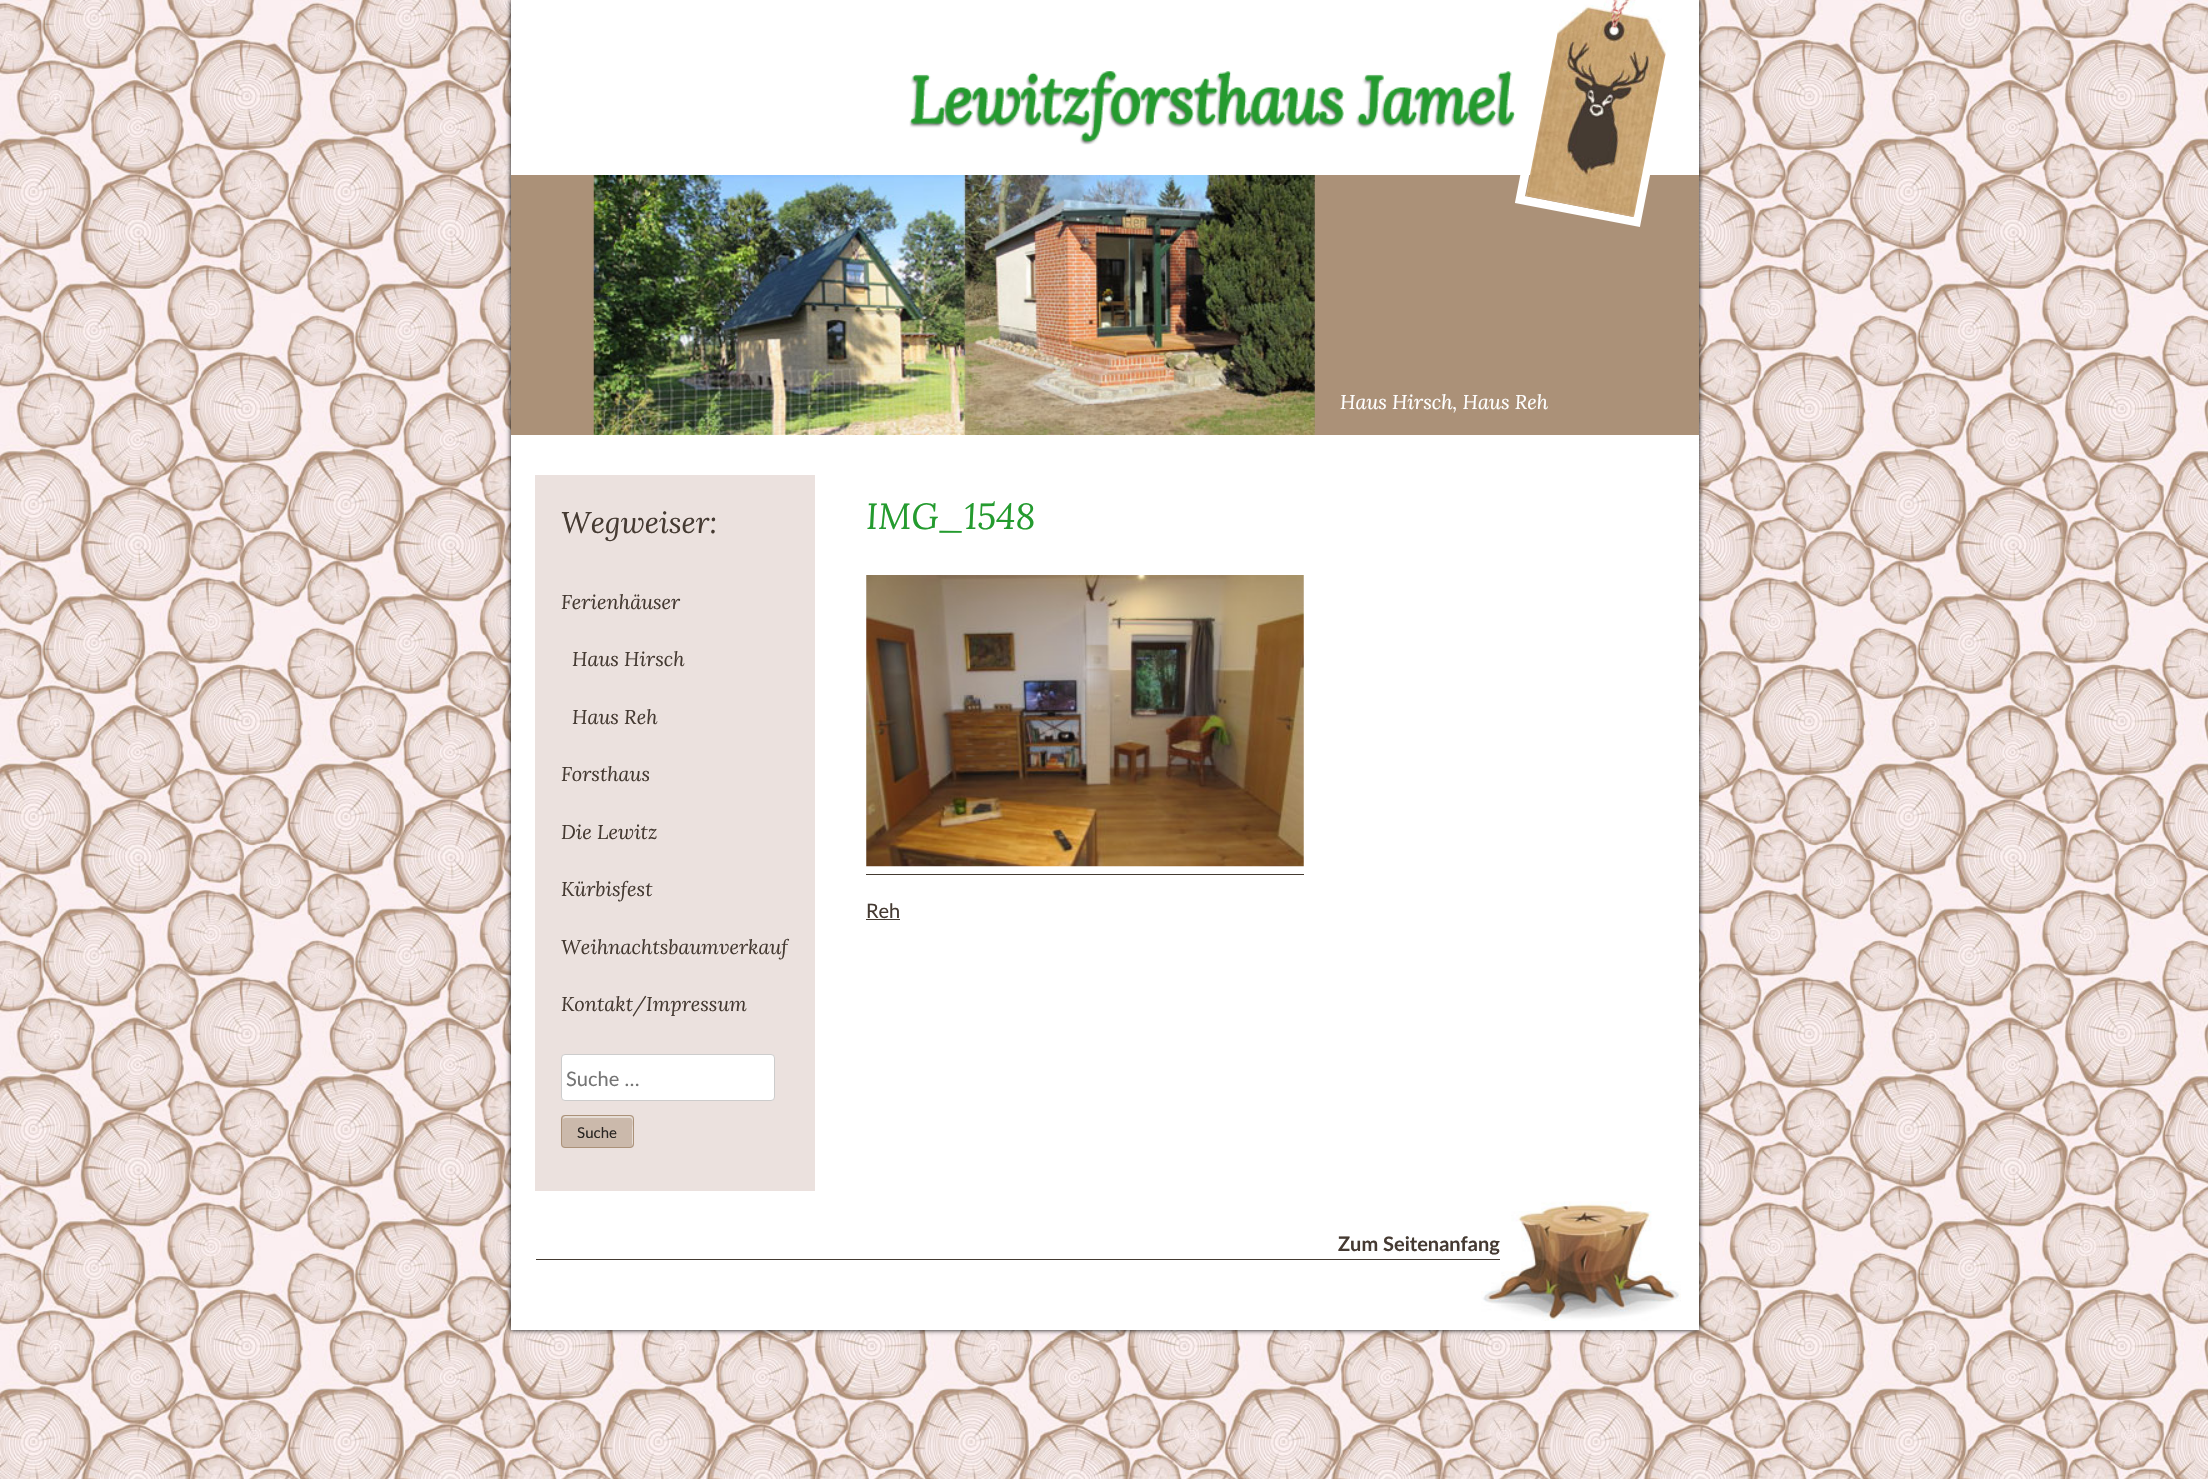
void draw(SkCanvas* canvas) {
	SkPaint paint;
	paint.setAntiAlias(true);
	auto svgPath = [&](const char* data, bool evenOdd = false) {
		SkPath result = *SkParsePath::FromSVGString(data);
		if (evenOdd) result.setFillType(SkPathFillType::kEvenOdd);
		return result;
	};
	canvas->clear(0xffffffff);
	canvas->drawImageRect(SkImages::DeferredFromEncodedData(SkData::MakeFromFileName("img1.png")), SkRect::MakeXYWH(0, 0, 2208, 1479), SkSamplingOptions());
	paint.setColor(0xff000000);
	paint.setMaskFilter(SkMaskFilter::MakeBlur(kNormal_SkBlurStyle, 2.5));
	canvas->drawRect(SkRect::MakeXYWH(511, 0, 1188, 1330), paint);
	paint.setMaskFilter(nullptr);
	paint.setColor(0xffffffff);
	canvas->drawRect(SkRect::MakeXYWH(511, 0, 1188, 1330), paint);
	canvas->drawImageRect(SkImages::DeferredFromEncodedData(SkData::MakeFromFileName("img2.png")), SkRect::MakeXYWH(909, 71, 606, 74), SkSamplingOptions());
	paint.setColor(0xffab9178);
	canvas->drawRect(SkRect::MakeXYWH(511, 175, 1188, 260), paint);
	paint.setStroke(true);
	paint.setStrokeWidth(8.7);
	paint.setColor(0xffffffff);
	canvas->drawPath(svgPath("M1569.5-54.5L1686-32L1636.5 222L1520 199.5Z"), paint);
	canvas->drawImageRect(SkImages::DeferredFromEncodedData(SkData::MakeFromFileName("img3.png")), SkRect::MakeXYWH(1526, 0, 142, 217), SkSamplingOptions());
	canvas->drawImageRect(SkImages::DeferredFromEncodedData(SkData::MakeFromFileName("img4.png")), SkRect::MakeXYWH(593, 175, 722, 260), SkSamplingOptions());
	SkFont f1(fontMgr->matchFamilyStyle("Lora", SkFontStyle::Italic()), 20);
	f1.setSubpixel(true);
	paint.setStroke(false);
	canvas->drawString("Haus Hirsch, Haus Reh", 1340, 409, f1, paint);
	paint.setColor(0xffebe1de);
	canvas->drawRect(SkRect::MakeXYWH(535, 475, 280, 716), paint);
	SkFont f2(fontMgr->matchFamilyStyle("Lora", SkFontStyle::Italic()), 30);
	f2.setSubpixel(true);
	paint.setColor(0xff453a32);
	canvas->drawString("Wegweiser:", 561, 533, f2, paint);
	canvas->drawString("Ferienhäuser", 561, 609, f1, paint);
	canvas->drawString("Haus Hirsch", 572, 666, f1, paint);
	canvas->drawString("Haus Reh", 572, 724, f1, paint);
	canvas->drawString("Forsthaus", 561, 781, f1, paint);
	canvas->drawString("Die Lewitz", 561, 839, f1, paint);
	canvas->drawString("Kürbisfest", 561, 896, f1, paint);
	canvas->drawString("Weihnachtsbaumverkauf", 561, 954, f1, paint);
	canvas->drawString("Kontakt/Impressum", 561, 1011, f1, paint);
	paint.setColor(0xffffffff);
	canvas->drawRoundRect(SkRect::MakeXYWH(561.5, 1054.5, 213, 46), 3.5, 3.5, paint);
	paint.setStroke(true);
	paint.setStrokeWidth(1);
	paint.setColor(0xffcccccc);
	canvas->drawRoundRect(SkRect::MakeXYWH(561.5, 1054.5, 213, 46), 3.5, 3.5, paint);
	SkFont f3(fontMgr->matchFamilyStyle("Lato", SkFontStyle::Normal()), 20);
	f3.setSubpixel(true);
	paint.setStroke(false);
	paint.setColor(0xff757575);
	canvas->drawString("Suche …", 566, 1086, f3, paint);
	paint.setColor(0xffcbb9ab);
	canvas->drawRoundRect(SkRect::MakeXYWH(561, 1115, 73, 33), 4, 4, paint);
	paint.setColor(0xffe5dcd5);
	canvas->drawPath(svgPath("M565 1118H630C634 1118 632 1127 632 1128V1146C634 1144 633 1134 633 1131C633 1114 637 1116 620 1116H576C571 1116 563 1114 563 1119Z"), paint);
	paint.setStroke(true);
	paint.setColor(0xffab9178);
	canvas->drawRoundRect(SkRect::MakeXYWH(561.5, 1115.5, 72, 32), 3.5, 3.5, paint);
	SkFont f4(fontMgr->matchFamilyStyle("Lato", SkFontStyle::Normal()), 15);
	f4.setSubpixel(true);
	paint.setStroke(false);
	paint.setColor(0xff292522);
	canvas->drawString("Suche", 577, 1138, f4, paint);
	SkFont f5(fontMgr->matchFamilyStyle("Lora", SkFontStyle::Italic()), 36.25);
	f5.setSubpixel(true);
	paint.setColor(0xff249b2f);
	canvas->drawString("IMG_1548", 866, 529, f5, paint);
	paint.setColor(0xff443a31);
	canvas->drawRect(SkRect::MakeXYWH(866, 874, 438, 1), paint);
	canvas->drawImageRect(SkImages::DeferredFromEncodedData(SkData::MakeFromFileName("img5.png")), SkRect::MakeXYWH(866, 575, 438, 292), SkSamplingOptions());
	paint.setColor(0xff453a32);
	canvas->drawString("Reh", 866, 918, f3, paint);
	paint.setColor(0xff443a31);
	canvas->drawRect(SkRect::MakeXYWH(866, 919, 34, 1), paint);
	canvas->drawImageRect(SkImages::DeferredFromEncodedData(SkData::MakeFromFileName("img6.png")), SkRect::MakeXYWH(1481, 1201, 200, 120), SkSamplingOptions());
	canvas->drawRect(SkRect::MakeXYWH(536, 1259, 964, 1), paint);
	SkFont f6(fontMgr->matchFamilyStyle("Lato", SkFontStyle::Bold()), 20);
	f6.setSubpixel(true);
	paint.setColor(0xff453a32);
	canvas->drawString("Zum Seitenanfang", 1338, 1251, f6, paint);
}
